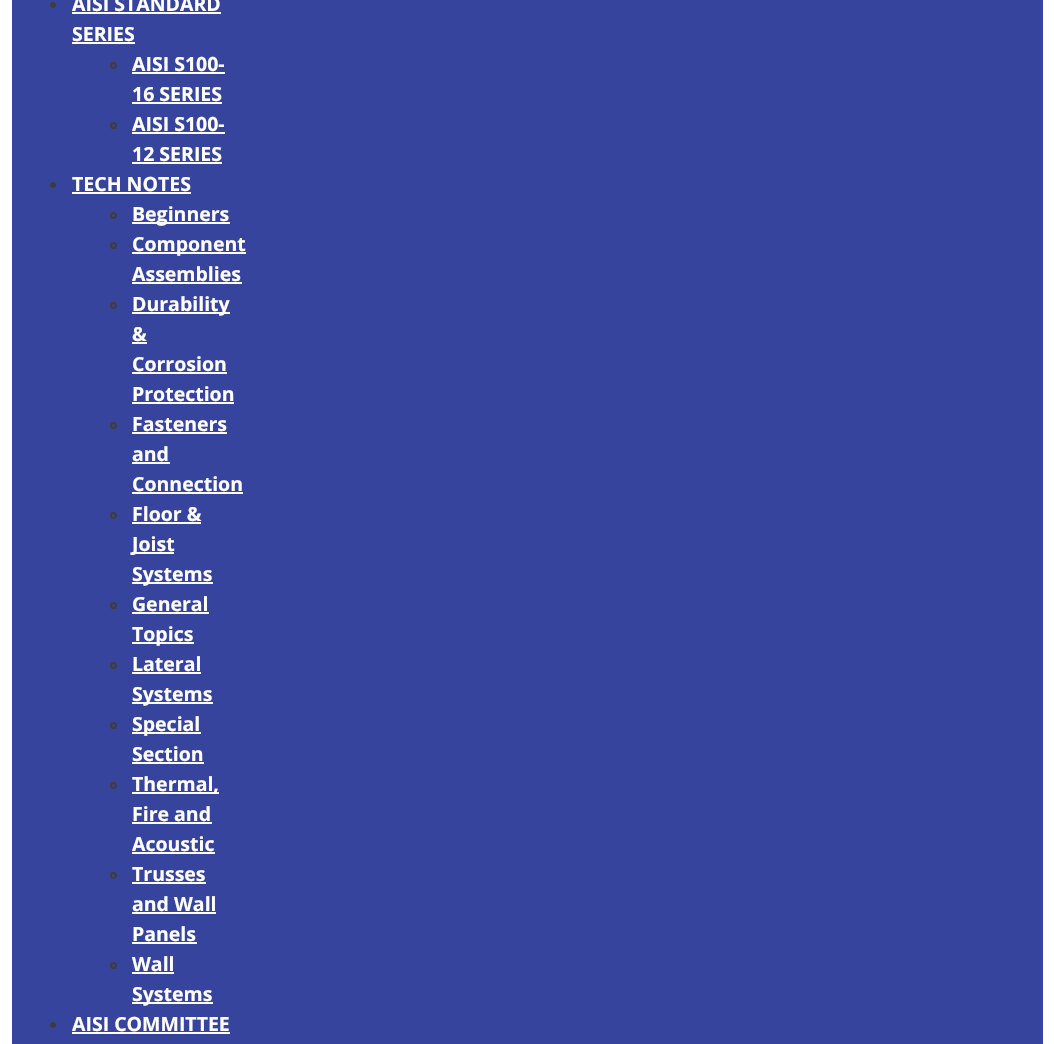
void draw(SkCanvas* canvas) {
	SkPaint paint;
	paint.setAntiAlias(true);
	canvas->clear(0xffffffff);
	paint.setColor(0xff37449d);
	canvas->drawRect(SkRect::MakeXYWH(12, 0, 1031, 1044), paint);
	paint.setColor(0xff3d3d3d);
	canvas->drawCircle(53, 5, 3, paint);
	SkFont f1(fontMgr->matchFamilyStyle("Open Sans", SkFontStyle::Bold()), 19.5);
	f1.setSubpixel(true);
	paint.setColor(0xffffffff);
	canvas->drawString("AISI STANDARD", 72, 11, f1, paint);
	canvas->drawRect(SkRect::MakeXYWH(72, 12, 149, 2), paint);
	canvas->drawString("SERIES", 72, 41, f1, paint);
	canvas->drawRect(SkRect::MakeXYWH(72, 42, 63, 2), paint);
	paint.setStroke(true);
	paint.setStrokeWidth(2);
	paint.setColor(0xff3d3d3d);
	canvas->drawCircle(113.5, 65.5, 2.5, paint);
	paint.setStroke(false);
	paint.setColor(0xffffffff);
	canvas->drawString("AISI S100-", 132, 71, f1, paint);
	canvas->drawRect(SkRect::MakeXYWH(132, 72, 93, 2), paint);
	canvas->drawString("16 SERIES", 132, 101, f1, paint);
	canvas->drawRect(SkRect::MakeXYWH(132, 102, 90, 2), paint);
	paint.setStroke(true);
	paint.setColor(0xff3d3d3d);
	canvas->drawCircle(113.5, 125.5, 2.5, paint);
	paint.setStroke(false);
	paint.setColor(0xffffffff);
	canvas->drawString("AISI S100-", 132, 131, f1, paint);
	canvas->drawRect(SkRect::MakeXYWH(132, 132, 93, 2), paint);
	canvas->drawString("12 SERIES", 132, 161, f1, paint);
	canvas->drawRect(SkRect::MakeXYWH(132, 162, 90, 2), paint);
	paint.setColor(0xff3d3d3d);
	canvas->drawCircle(53, 185, 3, paint);
	paint.setColor(0xffffffff);
	canvas->drawString("TECH NOTES", 72, 191, f1, paint);
	canvas->drawRect(SkRect::MakeXYWH(72, 192, 119, 2), paint);
	paint.setStroke(true);
	paint.setColor(0xff3d3d3d);
	canvas->drawCircle(113.5, 215.5, 2.5, paint);
	paint.setStroke(false);
	paint.setColor(0xffffffff);
	canvas->drawRect(SkRect::MakeXYWH(132, 222, 98, 2), paint);
	canvas->drawString("Beginners", 132, 221, f1, paint);
	paint.setStroke(true);
	paint.setColor(0xff3d3d3d);
	canvas->drawCircle(113.5, 245.5, 2.5, paint);
	paint.setStroke(false);
	paint.setColor(0xffffffff);
	canvas->drawRect(SkRect::MakeXYWH(132, 252, 114, 2), paint);
	canvas->drawString("Component", 132, 251, f1, paint);
	canvas->drawString("Assemblies", 132, 281, f1, paint);
	canvas->drawRect(SkRect::MakeXYWH(132, 282, 110, 2), paint);
	paint.setStroke(true);
	paint.setColor(0xff3d3d3d);
	canvas->drawCircle(113.5, 305.5, 2.5, paint);
	paint.setStroke(false);
	paint.setColor(0xffffffff);
	canvas->drawRect(SkRect::MakeXYWH(132, 312, 98, 2), paint);
	canvas->drawString("Durability", 132, 311, f1, paint);
	canvas->drawString("&", 132, 341, f1, paint);
	canvas->drawRect(SkRect::MakeXYWH(132, 342, 15, 2), paint);
	canvas->drawString("Corrosion", 132, 371, f1, paint);
	canvas->drawRect(SkRect::MakeXYWH(132, 372, 95, 2), paint);
	canvas->drawString("Protection", 132, 401, f1, paint);
	canvas->drawRect(SkRect::MakeXYWH(132, 402, 102, 2), paint);
	paint.setStroke(true);
	paint.setColor(0xff3d3d3d);
	canvas->drawCircle(113.5, 425.5, 2.5, paint);
	paint.setStroke(false);
	paint.setColor(0xffffffff);
	canvas->drawString("Fasteners", 132, 431, f1, paint);
	canvas->drawRect(SkRect::MakeXYWH(132, 432, 95, 2), paint);
	canvas->drawString("and", 132, 461, f1, paint);
	canvas->drawRect(SkRect::MakeXYWH(132, 462, 38, 2), paint);
	canvas->drawString("Connection", 132, 491, f1, paint);
	canvas->drawRect(SkRect::MakeXYWH(132, 492, 111, 2), paint);
	paint.setStroke(true);
	paint.setColor(0xff3d3d3d);
	canvas->drawCircle(113.5, 515.5, 2.5, paint);
	paint.setStroke(false);
	paint.setColor(0xffffffff);
	canvas->drawString("Floor &", 132, 521, f1, paint);
	canvas->drawRect(SkRect::MakeXYWH(132, 522, 69, 2), paint);
	canvas->drawRect(SkRect::MakeXYWH(132, 552, 42, 2), paint);
	canvas->drawString("Joist", 132, 551, f1, paint);
	canvas->drawRect(SkRect::MakeXYWH(132, 582, 81, 2), paint);
	canvas->drawString("Systems", 132, 581, f1, paint);
	paint.setStroke(true);
	paint.setColor(0xff3d3d3d);
	canvas->drawCircle(113.5, 605.5, 2.5, paint);
	paint.setStroke(false);
	paint.setColor(0xffffffff);
	canvas->drawString("General", 132, 611, f1, paint);
	canvas->drawRect(SkRect::MakeXYWH(132, 612, 77, 2), paint);
	canvas->drawRect(SkRect::MakeXYWH(132, 642, 62, 2), paint);
	canvas->drawString("Topics", 132, 641, f1, paint);
	paint.setStroke(true);
	paint.setColor(0xff3d3d3d);
	canvas->drawCircle(113.5, 665.5, 2.5, paint);
	paint.setStroke(false);
	paint.setColor(0xffffffff);
	canvas->drawString("Lateral", 132, 671, f1, paint);
	canvas->drawRect(SkRect::MakeXYWH(132, 672, 69, 2), paint);
	canvas->drawRect(SkRect::MakeXYWH(132, 702, 81, 2), paint);
	canvas->drawString("Systems", 132, 701, f1, paint);
	paint.setStroke(true);
	paint.setColor(0xff3d3d3d);
	canvas->drawCircle(113.5, 725.5, 2.5, paint);
	paint.setStroke(false);
	paint.setColor(0xffffffff);
	canvas->drawRect(SkRect::MakeXYWH(132, 732, 69, 2), paint);
	canvas->drawString("Special", 132, 731, f1, paint);
	canvas->drawString("Section", 132, 761, f1, paint);
	canvas->drawRect(SkRect::MakeXYWH(132, 762, 72, 2), paint);
	paint.setStroke(true);
	paint.setColor(0xff3d3d3d);
	canvas->drawCircle(113.5, 785.5, 2.5, paint);
	paint.setStroke(false);
	paint.setColor(0xffffffff);
	canvas->drawRect(SkRect::MakeXYWH(132, 792, 87, 2), paint);
	canvas->drawString("Thermal,", 132, 791, f1, paint);
	canvas->drawString("Fire and", 132, 821, f1, paint);
	canvas->drawRect(SkRect::MakeXYWH(132, 822, 80, 2), paint);
	canvas->drawString("Acoustic", 132, 851, f1, paint);
	canvas->drawRect(SkRect::MakeXYWH(132, 852, 83, 2), paint);
	paint.setStroke(true);
	paint.setColor(0xff3d3d3d);
	canvas->drawCircle(113.5, 875.5, 2.5, paint);
	paint.setStroke(false);
	paint.setColor(0xffffffff);
	canvas->drawString("Trusses", 132, 881, f1, paint);
	canvas->drawRect(SkRect::MakeXYWH(132, 882, 74, 2), paint);
	canvas->drawString("and Wall", 132, 911, f1, paint);
	canvas->drawRect(SkRect::MakeXYWH(132, 912, 84, 2), paint);
	canvas->drawString("Panels", 132, 941, f1, paint);
	canvas->drawRect(SkRect::MakeXYWH(132, 942, 65, 2), paint);
	paint.setStroke(true);
	paint.setColor(0xff3d3d3d);
	canvas->drawCircle(113.5, 965.5, 2.5, paint);
	paint.setStroke(false);
	paint.setColor(0xffffffff);
	canvas->drawString("Wall", 132, 971, f1, paint);
	canvas->drawRect(SkRect::MakeXYWH(132, 972, 42, 2), paint);
	canvas->drawRect(SkRect::MakeXYWH(132, 1002, 81, 2), paint);
	canvas->drawString("Systems", 132, 1001, f1, paint);
	paint.setColor(0xff3d3d3d);
	canvas->drawCircle(53, 1025, 3, paint);
	paint.setColor(0xffffffff);
	canvas->drawString("AISI COMMITTEE", 72, 1031, f1, paint);
	canvas->drawRect(SkRect::MakeXYWH(72, 1032, 158, 2), paint);
}
